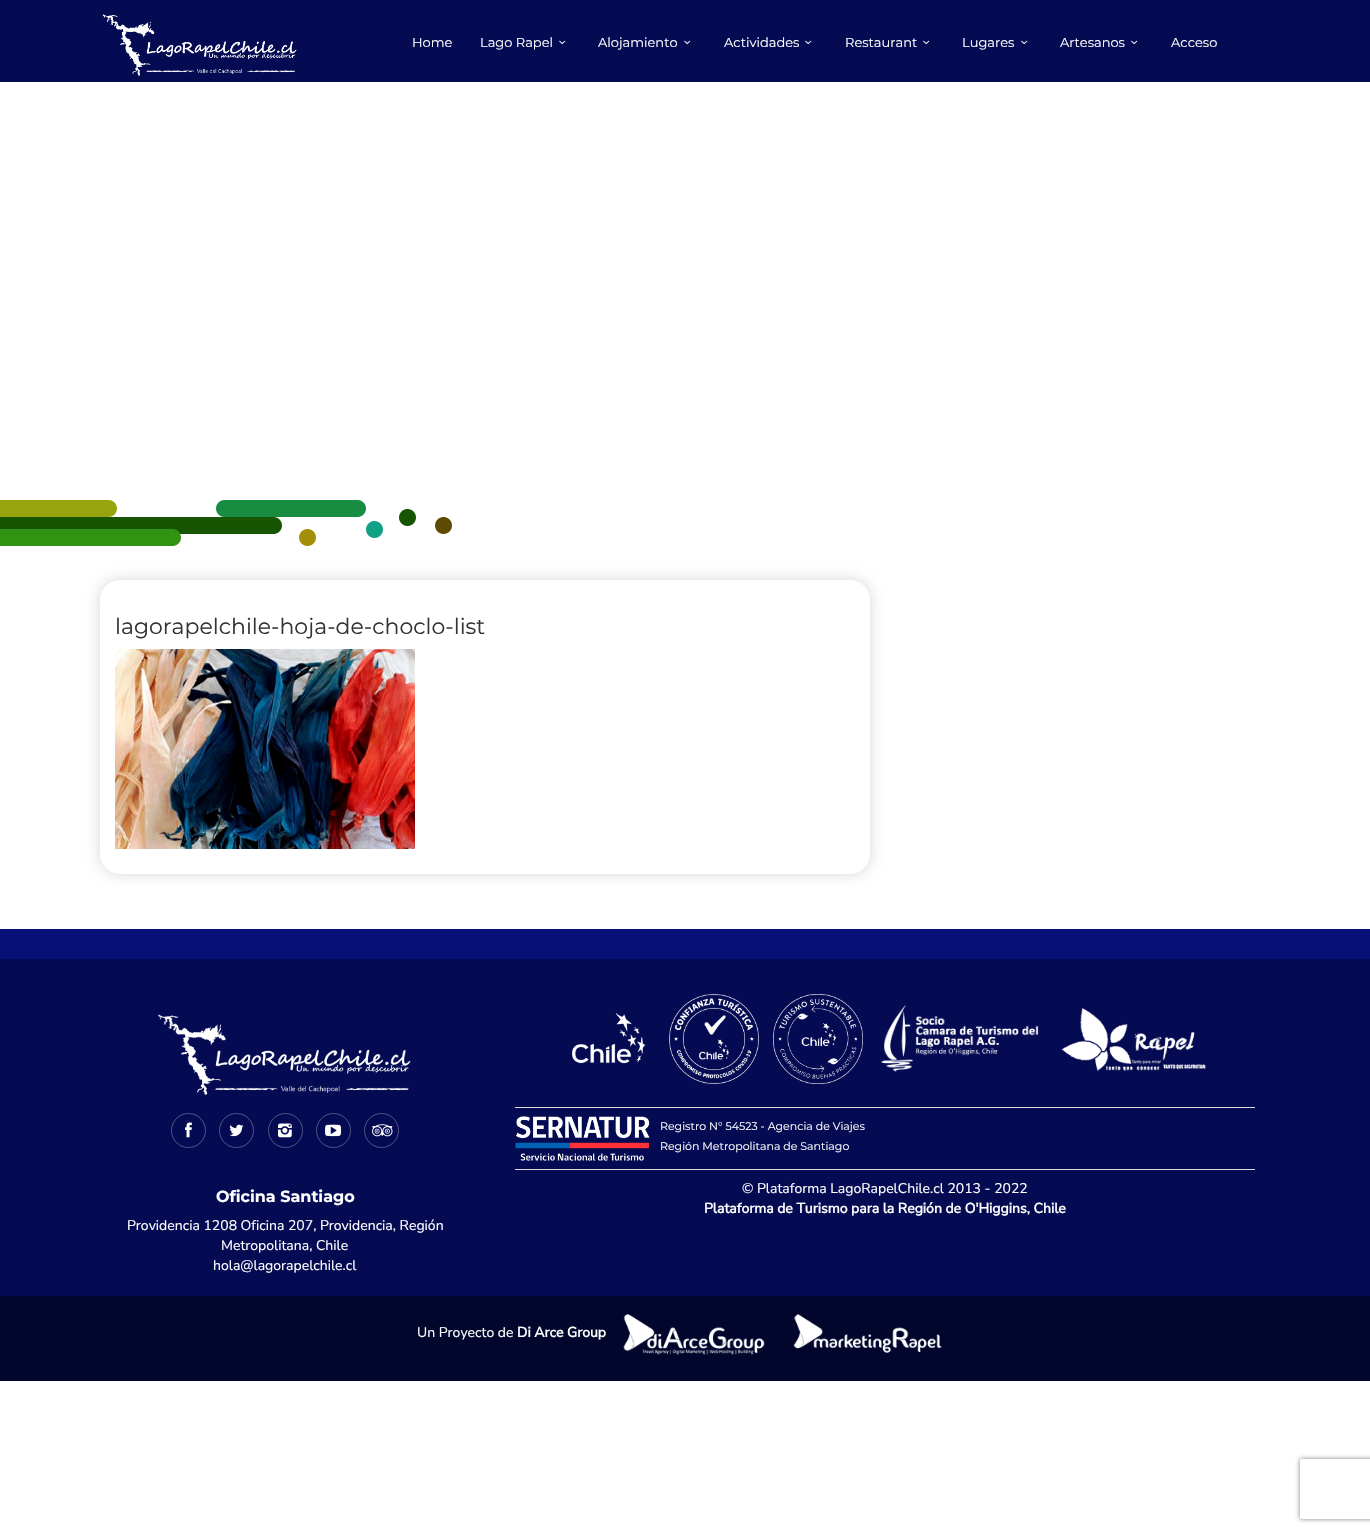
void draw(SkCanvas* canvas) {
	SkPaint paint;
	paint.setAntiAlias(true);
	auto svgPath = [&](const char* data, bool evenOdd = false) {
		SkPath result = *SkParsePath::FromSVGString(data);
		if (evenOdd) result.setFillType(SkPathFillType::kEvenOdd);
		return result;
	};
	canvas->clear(0xffffffff);
	paint.setColor(0xff040b52);
	canvas->drawRect(SkRect::MakeXYWH(0, 0, 1370, 82), paint);
	canvas->drawImageRect(SkImages::DeferredFromEncodedData(SkData::MakeFromFileName("img1.png")), SkRect::MakeXYWH(102, 14, 195, 62), SkSamplingOptions());
	SkFont f1(fontMgr->matchFamilyStyle("Montserrat", SkFontStyle::Normal()), 13);
	f1.setSubpixel(true);
	paint.setColor(0xffffffff);
	canvas->drawString("Home", 412, 47, f1, paint);
	canvas->drawString("Lago Rapel", 480, 47, f1, paint);
	canvas->drawImageRect(SkImages::DeferredFromEncodedData(SkData::MakeFromFileName("img2.png")), SkRect::MakeXYWH(559, 40, 7, 5), SkSamplingOptions());
	canvas->drawString("Alojamiento", 598, 47, f1, paint);
	canvas->drawImageRect(SkImages::DeferredFromEncodedData(SkData::MakeFromFileName("img2.png")), SkRect::MakeXYWH(684, 40, 7, 5), SkSamplingOptions());
	canvas->drawString("Actividades", 724, 47, f1, paint);
	canvas->drawImageRect(SkImages::DeferredFromEncodedData(SkData::MakeFromFileName("img2.png")), SkRect::MakeXYWH(805, 40, 7, 5), SkSamplingOptions());
	canvas->drawString("Restaurant", 845, 47, f1, paint);
	canvas->drawImageRect(SkImages::DeferredFromEncodedData(SkData::MakeFromFileName("img2.png")), SkRect::MakeXYWH(923, 40, 7, 5), SkSamplingOptions());
	canvas->drawString("Lugares", 962, 47, f1, paint);
	canvas->drawImageRect(SkImages::DeferredFromEncodedData(SkData::MakeFromFileName("img2.png")), SkRect::MakeXYWH(1021, 40, 7, 5), SkSamplingOptions());
	canvas->drawString("Artesanos", 1060, 47, f1, paint);
	canvas->drawImageRect(SkImages::DeferredFromEncodedData(SkData::MakeFromFileName("img2.png")), SkRect::MakeXYWH(1131, 40, 7, 5), SkSamplingOptions());
	canvas->drawString("Acceso", 1171, 47, f1, paint);
	canvas->drawImageRect(SkImages::DeferredFromEncodedData(SkData::MakeFromFileName("img3.png")), SkRect::MakeXYWH(0, 500, 452, 46), SkSamplingOptions());
	paint.setColor(0x29000000);
	paint.setMaskFilter(SkMaskFilter::MakeBlur(kNormal_SkBlurStyle, 7));
	canvas->drawRoundRect(SkRect::MakeXYWH(100, 580, 770, 294), 20, 20, paint);
	paint.setMaskFilter(nullptr);
	paint.setColor(0xffffffff);
	canvas->drawRoundRect(SkRect::MakeXYWH(100, 580, 770, 294), 20, 20, paint);
	SkFont f2(fontMgr->matchFamilyStyle("Montserrat", SkFontStyle::Normal()), 22);
	f2.setSubpixel(true);
	paint.setColor(0xff333333);
	canvas->drawString("lagorapelchile-hoja-de-choclo-list", 115, 634, f2, paint);
	canvas->drawImageRect(SkImages::DeferredFromEncodedData(SkData::MakeFromFileName("img4.png")), SkRect::MakeXYWH(115, 649, 300, 200), SkSamplingOptions());
	paint.setColor(0xff040b52);
	canvas->drawRect(SkRect::MakeXYWH(0, 959, 1370, 337), paint);
	paint.setColor(0xff061077);
	canvas->drawRect(SkRect::MakeXYWH(0, 929, 1370, 30), paint);
	canvas->drawImageRect(SkImages::DeferredFromEncodedData(SkData::MakeFromFileName("img5.png")), SkRect::MakeXYWH(572, 1013, 74, 51), SkSamplingOptions());
	canvas->drawImageRect(SkImages::DeferredFromEncodedData(SkData::MakeFromFileName("img6.png")), SkRect::MakeXYWH(669, 994, 90, 90), SkSamplingOptions());
	canvas->drawImageRect(SkImages::DeferredFromEncodedData(SkData::MakeFromFileName("img7.png")), SkRect::MakeXYWH(773, 994, 90, 90), SkSamplingOptions());
	canvas->drawImageRect(SkImages::DeferredFromEncodedData(SkData::MakeFromFileName("img8.png")), SkRect::MakeXYWH(881, 1004, 158, 68), SkSamplingOptions());
	canvas->drawImageRect(SkImages::DeferredFromEncodedData(SkData::MakeFromFileName("img9.png")), SkRect::MakeXYWH(1061, 1008, 145, 63), SkSamplingOptions());
	paint.setColor(0xffdddddd);
	canvas->drawRect(SkRect::MakeXYWH(515, 1107, 740, 1), paint);
	canvas->drawImageRect(SkImages::DeferredFromEncodedData(SkData::MakeFromFileName("img10.png")), SkRect::MakeXYWH(515, 1116, 135, 45), SkSamplingOptions());
	SkFont f3(fontMgr->matchFamilyStyle("Montserrat", SkFontStyle::Normal()), 11);
	f3.setSubpixel(true);
	paint.setColor(0xffffffff);
	canvas->drawString("Registro N° 54523 - Agencia de Viajes", 660, 1130, f3, paint);
	canvas->drawString("Región Metropolitana de Santiago", 660, 1150, f3, paint);
	paint.setColor(0xffdddddd);
	canvas->drawRect(SkRect::MakeXYWH(515, 1169, 740, 1), paint);
	SkFont f4(fontMgr->matchFamilyStyle("Nunito Sans", SkFontStyle(200, SkFontStyle::kNormal_Width, SkFontStyle::kUpright_Slant)), 14);
	f4.setSubpixel(true);
	paint.setColor(0xffffffff);
	canvas->drawString("© Plataforma LagoRapelChile.cl 2013 - 2022", 742, 1193, f4, paint);
	SkFont f5(fontMgr->matchFamilyStyle("Nunito Sans", SkFontStyle::Bold()), 14);
	f5.setSubpixel(true);
	canvas->drawString("Plataforma de Turismo para la Región de O'Higgins, Chile", 704, 1213, f5, paint);
	canvas->drawImageRect(SkImages::DeferredFromEncodedData(SkData::MakeFromFileName("img11.png")), SkRect::MakeXYWH(158, 1014, 253, 81), SkSamplingOptions());
	paint.setStroke(true);
	paint.setStrokeWidth(1);
	paint.setColor(0xff4f5486);
	canvas->drawCircle(188.5, 1130.5, 17, paint);
	canvas->drawImageRect(SkImages::DeferredFromEncodedData(SkData::MakeFromFileName("img12.png")), SkRect::MakeXYWH(185, 1122, 7, 16), SkSamplingOptions());
	canvas->drawCircle(236.5, 1130.5, 17, paint);
	canvas->drawImageRect(SkImages::DeferredFromEncodedData(SkData::MakeFromFileName("img13.png")), SkRect::MakeXYWH(229, 1124, 15, 13), SkSamplingOptions());
	canvas->drawCircle(285.5, 1130.5, 17, paint);
	canvas->drawImageRect(SkImages::DeferredFromEncodedData(SkData::MakeFromFileName("img14.png")), SkRect::MakeXYWH(278, 1123, 14, 15), SkSamplingOptions());
	canvas->drawCircle(333.5, 1130.5, 17, paint);
	canvas->drawImageRect(SkImages::DeferredFromEncodedData(SkData::MakeFromFileName("img15.png")), SkRect::MakeXYWH(325, 1124, 17, 13), SkSamplingOptions());
	canvas->drawCircle(381.5, 1130.5, 17, paint);
	canvas->drawImageRect(SkImages::DeferredFromEncodedData(SkData::MakeFromFileName("img16.png")), SkRect::MakeXYWH(372, 1124, 21, 13), SkSamplingOptions());
	SkFont f6(fontMgr->matchFamilyStyle("Montserrat", SkFontStyle::Bold()), 16);
	f6.setSubpixel(true);
	paint.setStroke(false);
	paint.setColor(0xffffffff);
	canvas->drawString("Oficina Santiago", 216, 1202, f6, paint);
	canvas->drawString("Providencia 1208 Oficina 207, Providencia, Región", 127, 1230, f4, paint);
	canvas->drawString("Metropolitana, Chile", 221, 1250, f4, paint);
	canvas->drawString("hola@lagorapelchile.cl", 213, 1270, f4, paint);
	paint.setColor(0xff02062d);
	canvas->drawRect(SkRect::MakeXYWH(0, 1296, 1370, 85), paint);
	paint.setColor(0xffffffff);
	canvas->drawString("Un Proyecto de", 417, 1337, f4, paint);
	canvas->drawString("Di Arce Group", 517, 1337, f5, paint);
	canvas->drawImageRect(SkImages::DeferredFromEncodedData(SkData::MakeFromFileName("img17.png")), SkRect::MakeXYWH(623, 1314, 142, 41), SkSamplingOptions());
	canvas->drawImageRect(SkImages::DeferredFromEncodedData(SkData::MakeFromFileName("img18.png")), SkRect::MakeXYWH(793, 1314, 149, 39), SkSamplingOptions());
	canvas->save();
	canvas->clipPath(svgPath("M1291 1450H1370V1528H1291ZM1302 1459H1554C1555 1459 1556 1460 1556 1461V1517C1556 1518 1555 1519 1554 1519H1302C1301 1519 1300 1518 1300 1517V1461C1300 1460 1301 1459 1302 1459Z", true), true);
	paint.setColor(0xff808080);
	paint.setMaskFilter(SkMaskFilter::MakeBlur(kNormal_SkBlurStyle, 2.5));
	canvas->drawRoundRect(SkRect::MakeXYWH(1300, 1459, 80, 60), 2, 2, paint);
	paint.setMaskFilter(nullptr);
	canvas->restore();
}
